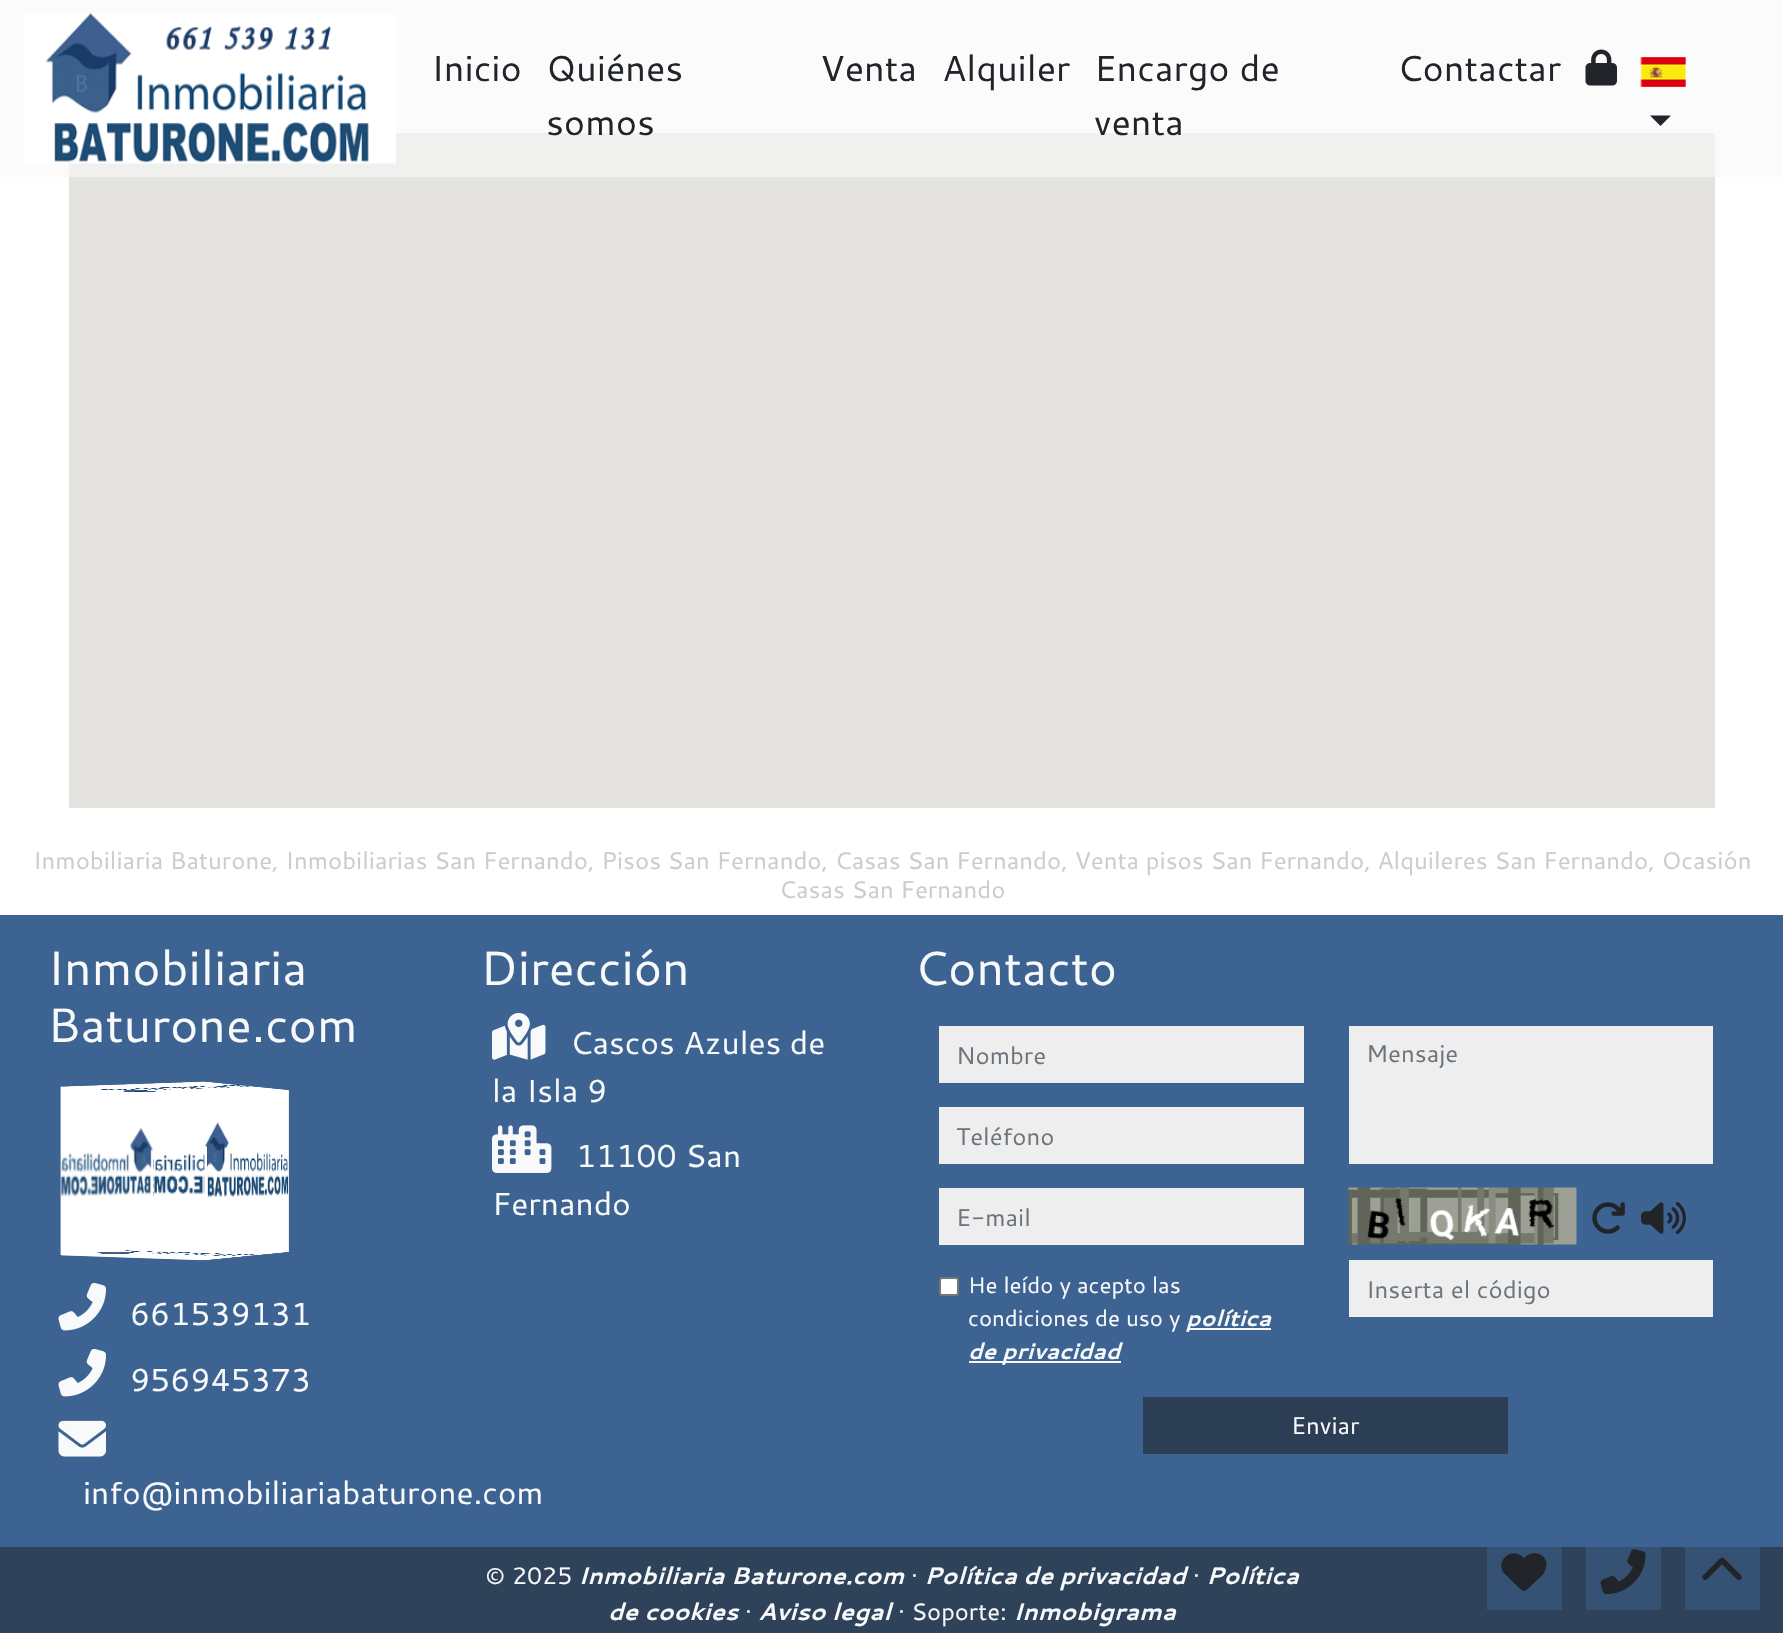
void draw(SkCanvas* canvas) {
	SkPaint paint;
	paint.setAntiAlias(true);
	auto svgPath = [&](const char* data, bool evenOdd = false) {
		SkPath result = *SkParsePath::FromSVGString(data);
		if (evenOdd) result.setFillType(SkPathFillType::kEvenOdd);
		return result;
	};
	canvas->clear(0xffffffff);
	paint.setColor(0xfffbfbfc);
	canvas->drawRect(SkRect::MakeXYWH(0, 0, 1783, 177), paint);
	paint.setColor(0xfff0f0ef);
	canvas->drawRect(SkRect::MakeXYWH(69, 133, 1646, 44), paint);
	canvas->drawImageRect(SkImages::DeferredFromEncodedData(SkData::MakeFromFileName("img1.png")), SkRect::MakeXYWH(24, 13, 372, 151), SkSamplingOptions());
	SkFont f1(fontMgr->matchFamilyStyle("Cantarell", SkFontStyle::Normal()), 36);
	f1.setSubpixel(true);
	paint.setColor(0xff212529);
	canvas->drawString("Inicio", 431, 81, f1, paint);
	canvas->drawString("Quiénes", 546, 81, f1, paint);
	canvas->drawString("somos", 546, 135, f1, paint);
	canvas->drawString("Venta", 820, 81, f1, paint);
	canvas->drawString("Alquiler", 942, 81, f1, paint);
	canvas->drawString("Encargo de", 1094, 81, f1, paint);
	canvas->drawString("venta", 1094, 135, f1, paint);
	canvas->drawString("Contactar", 1397, 81, f1, paint);
	canvas->drawImageRect(SkImages::DeferredFromEncodedData(SkData::MakeFromFileName("img2.png")), SkRect::MakeXYWH(1585, 49, 32, 37), SkSamplingOptions());
	canvas->drawImageRect(SkImages::DeferredFromEncodedData(SkData::MakeFromFileName("img3.png")), SkRect::MakeXYWH(1640, 57, 46, 30), SkSamplingOptions());
	canvas->drawPath(svgPath("M1650 115.5H1671L1660.5 126Z"), paint);
	paint.setColor(0xffe5e3df);
	canvas->drawRect(SkRect::MakeXYWH(69, 177, 1646, 631), paint);
	SkFont f2(fontMgr->matchFamilyStyle("Cantarell", SkFontStyle::Normal()), 24);
	f2.setSubpixel(true);
	paint.setColor(0xffcccccc);
	canvas->drawString("Inmobiliaria Baturone, Inmobiliarias San Fernando, Pisos San Fernando, Casas San Fernando, Venta pisos San Fernando, Alquileres San Fernando, Ocasión", 33, 869, f2, paint);
	canvas->drawString("Casas San Fernando", 779, 898, f2, paint);
	paint.setColor(0xff3d6392);
	canvas->drawRect(SkRect::MakeXYWH(0, 915, 1783, 632), paint);
	SkFont f3(fontMgr->matchFamilyStyle("Cantarell", SkFontStyle::Normal()), 48);
	f3.setSubpixel(true);
	paint.setColor(0xfff8f9fa);
	canvas->drawString("Inmobiliaria", 47, 985, f3, paint);
	canvas->drawString("Baturone.com", 47, 1042, f3, paint);
	canvas->drawImageRect(SkImages::DeferredFromEncodedData(SkData::MakeFromFileName("img4.png")), SkRect::MakeXYWH(60, 1081, 145, 180), SkSamplingOptions());
	canvas->drawImageRect(SkImages::DeferredFromEncodedData(SkData::MakeFromFileName("img8.png")), SkRect::MakeXYWH(153, 1090, 136, 162), SkSamplingOptions());
	canvas->drawImageRect(SkImages::DeferredFromEncodedData(SkData::MakeFromFileName("img5.png")), SkRect::MakeXYWH(204, 1081, 85, 180), SkSamplingOptions());
	canvas->drawImageRect(SkImages::DeferredFromEncodedData(SkData::MakeFromFileName("img7.png")), SkRect::MakeXYWH(60, 1086, 94, 170), SkSamplingOptions());
	canvas->drawImageRect(SkImages::DeferredFromEncodedData(SkData::MakeFromFileName("img6.png")), SkRect::MakeXYWH(68, 1082, 215, 11), SkSamplingOptions());
	canvas->drawImageRect(SkImages::DeferredFromEncodedData(SkData::MakeFromFileName("img9.png")), SkRect::MakeXYWH(61, 1249, 222, 12), SkSamplingOptions());
	canvas->drawImageRect(SkImages::DeferredFromEncodedData(SkData::MakeFromFileName("img10.png")), SkRect::MakeXYWH(58, 1283, 48, 48), SkSamplingOptions());
	SkFont f4(fontMgr->matchFamilyStyle("Cantarell", SkFontStyle::Normal()), 31.7);
	f4.setSubpixel(true);
	canvas->drawString("661539131", 130, 1325, f4, paint);
	canvas->drawImageRect(SkImages::DeferredFromEncodedData(SkData::MakeFromFileName("img10.png")), SkRect::MakeXYWH(58, 1349, 48, 48), SkSamplingOptions());
	canvas->drawString("956945373", 130, 1391, f4, paint);
	canvas->drawImageRect(SkImages::DeferredFromEncodedData(SkData::MakeFromFileName("img11.png")), SkRect::MakeXYWH(58, 1420, 48, 37), SkSamplingOptions());
	canvas->drawString("info@inmobiliariabaturone.com", 83, 1504, f4, paint);
	canvas->drawString("Dirección", 480, 985, f3, paint);
	canvas->drawImageRect(SkImages::DeferredFromEncodedData(SkData::MakeFromFileName("img12.png")), SkRect::MakeXYWH(492, 1012, 54, 48), SkSamplingOptions());
	canvas->drawString("Cascos Azules de", 570, 1054, f4, paint);
	canvas->drawString("la Isla 9", 492, 1102, f4, paint);
	canvas->drawImageRect(SkImages::DeferredFromEncodedData(SkData::MakeFromFileName("img13.png")), SkRect::MakeXYWH(492, 1125, 60, 48), SkSamplingOptions());
	canvas->drawString("11100 San", 576, 1167, f4, paint);
	canvas->drawString("Fernando", 492, 1215, f4, paint);
	canvas->drawString("Contacto", 914, 985, f3, paint);
	paint.setColor(0xffeeeeee);
	canvas->drawRect(SkRect::MakeXYWH(939, 1026, 365, 57), paint);
	paint.setColor(0xff6c757d);
	canvas->drawString("Nombre", 956, 1064, f2, paint);
	paint.setColor(0xffeeeeee);
	canvas->drawRect(SkRect::MakeXYWH(939, 1107, 365, 57), paint);
	paint.setColor(0xff6c757d);
	canvas->drawString("Teléfono", 956, 1145, f2, paint);
	paint.setColor(0xffeeeeee);
	canvas->drawRect(SkRect::MakeXYWH(939, 1188, 365, 57), paint);
	paint.setColor(0xff6c757d);
	canvas->drawString("E-mail", 956, 1226, f2, paint);
	paint.setColor(0xffffffff);
	canvas->drawRoundRect(SkRect::MakeXYWH(940, 1278, 18, 17), 2, 2, paint);
	paint.setStroke(true);
	paint.setStrokeWidth(2);
	paint.setColor(0xff767676);
	canvas->drawRoundRect(SkRect::MakeXYWH(940, 1278, 18, 17), 2, 2, paint);
	SkFont f5(fontMgr->matchFamilyStyle("Cantarell", SkFontStyle::Normal()), 22.25);
	f5.setSubpixel(true);
	paint.setStroke(false);
	paint.setColor(0xfff8f9fa);
	canvas->drawString("He leído y acepto las", 968, 1293, f5, paint);
	canvas->drawString("condiciones de uso y", 968, 1326, f5, paint);
	canvas->drawRect(SkRect::MakeXYWH(1187, 1328, 84, 2), paint);
	SkFont f6(fontMgr->matchFamilyStyle("Cantarell", SkFontStyle::BoldItalic()), 22.25);
	f6.setSubpixel(true);
	canvas->drawString("política", 1186, 1326, f6, paint);
	canvas->drawRect(SkRect::MakeXYWH(969, 1361, 152, 2), paint);
	canvas->drawString("de privacidad", 968, 1359, f6, paint);
	paint.setColor(0xffeeeeee);
	canvas->drawRect(SkRect::MakeXYWH(1349, 1026, 364, 138), paint);
	paint.setColor(0xff6c757d);
	canvas->drawString("Mensaje", 1366, 1062, f2, paint);
	canvas->drawImageRect(SkImages::DeferredFromEncodedData(SkData::MakeFromFileName("img14.png")), SkRect::MakeXYWH(1348, 1187, 229, 58), SkSamplingOptions());
	canvas->drawImageRect(SkImages::DeferredFromEncodedData(SkData::MakeFromFileName("img15.png")), SkRect::MakeXYWH(1592, 1202, 33, 32), SkSamplingOptions());
	canvas->drawImageRect(SkImages::DeferredFromEncodedData(SkData::MakeFromFileName("img16.png")), SkRect::MakeXYWH(1641, 1201, 45, 34), SkSamplingOptions());
	paint.setColor(0xffeeeeee);
	canvas->drawRect(SkRect::MakeXYWH(1349, 1260, 364, 57), paint);
	paint.setColor(0xff6c757d);
	canvas->drawString("Inserta el código", 1366, 1298, f2, paint);
	paint.setColor(0xff2c3e53);
	canvas->drawRect(SkRect::MakeXYWH(1143, 1397, 365, 57), paint);
	paint.setColor(0xfff8f9fa);
	canvas->drawString("Enviar", 1291, 1434, f2, paint);
	paint.setColor(0xff2e425a);
	canvas->drawRect(SkRect::MakeXYWH(0, 1547, 1783, 86), paint);
	paint.setColor(0xff355274);
	canvas->drawRect(SkRect::MakeXYWH(1487, 1547, 75, 63), paint);
	canvas->drawRect(SkRect::MakeXYWH(1586, 1547, 75, 63), paint);
	canvas->drawRect(SkRect::MakeXYWH(1685, 1547, 75, 63), paint);
	SkFont f7(fontMgr->matchFamilyStyle("Cantarell", SkFontStyle::Normal()), 23.75);
	f7.setSubpixel(true);
	paint.setColor(0xfff8f9fa);
	canvas->drawString("© 2025", 485, 1584, f7, paint);
	SkFont f8(fontMgr->matchFamilyStyle("Cantarell", SkFontStyle::BoldItalic()), 23.75);
	f8.setSubpixel(true);
	canvas->drawString("Inmobiliaria Baturone.com", 578, 1584, f8, paint);
	canvas->drawString("·", 911, 1584, f7, paint);
	canvas->drawString("Política de privacidad", 924, 1584, f8, paint);
	canvas->drawString("·", 1193, 1584, f7, paint);
	canvas->drawString("Política", 1206, 1584, f8, paint);
	canvas->drawString("de cookies", 608, 1620, f8, paint);
	canvas->drawString("·", 745, 1620, f7, paint);
	canvas->drawString("Aviso legal", 758, 1620, f8, paint);
	canvas->drawString("· Soporte:", 898, 1620, f7, paint);
	canvas->drawString("Inmobigrama", 1013, 1620, f8, paint);
	paint.setColor(0xff212529);
	canvas->drawPath(svgPath("M1506 1575L1522 1590L1506 1575L1519 1588C1524 1592 1524 1592 1529 1588L1534 1583C1538 1579 1543 1576 1545 1571C1552 1557 1535 1547 1524 1558C1510 1544 1493 1564 1506 1575Z"), paint);
	canvas->drawImageRect(SkImages::DeferredFromEncodedData(SkData::MakeFromFileName("img17.png")), SkRect::MakeXYWH(1600, 1549, 46, 46), SkSamplingOptions());
	canvas->drawImageRect(SkImages::DeferredFromEncodedData(SkData::MakeFromFileName("img18.png")), SkRect::MakeXYWH(1702, 1557, 40, 23), SkSamplingOptions());
}
